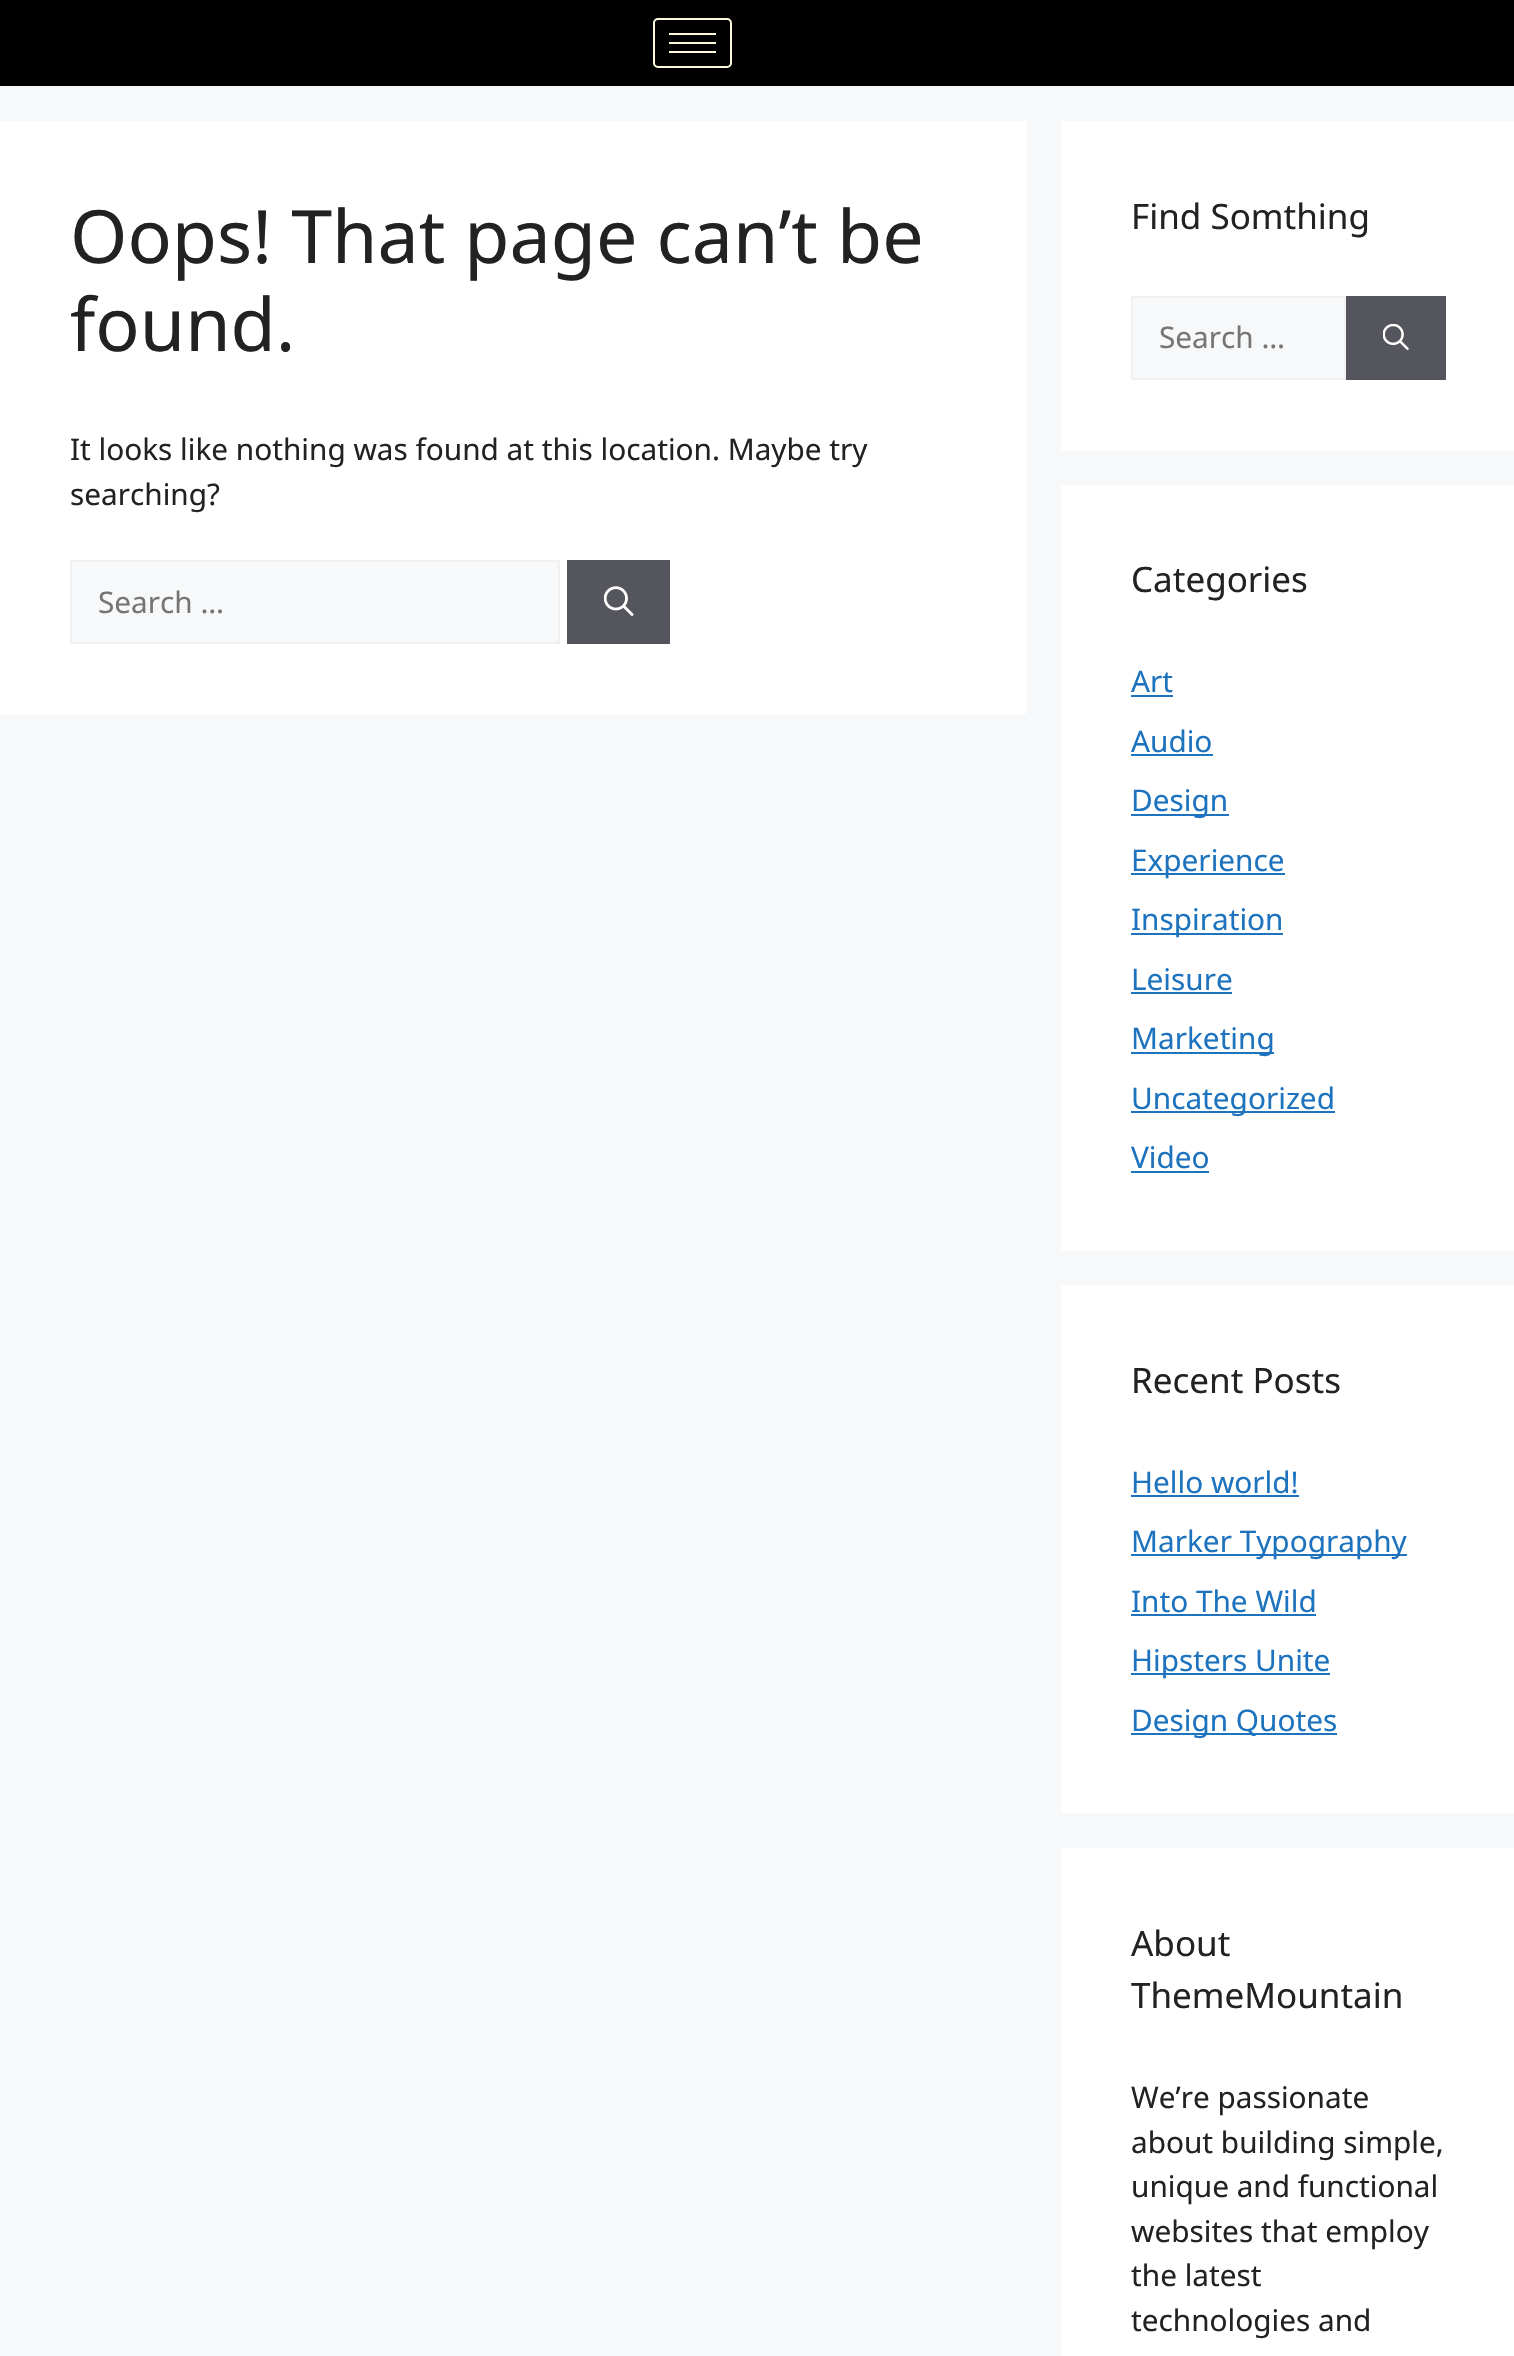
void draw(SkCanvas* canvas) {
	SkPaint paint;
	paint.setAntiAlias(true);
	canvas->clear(0xfff7f8f9);
	paint.setColor(0xff000000);
	canvas->drawRect(SkRect::MakeXYWH(0, 0, 1514, 86), paint);
	paint.setStroke(true);
	paint.setStrokeWidth(2);
	paint.setColor(0xfffef9da);
	canvas->drawRoundRect(SkRect::MakeXYWH(654, 19, 77, 48), 4, 4, paint);
	paint.setStroke(false);
	canvas->drawRect(SkRect::MakeXYWH(669, 33, 47, 2), paint);
	canvas->drawRect(SkRect::MakeXYWH(669, 42, 47, 2), paint);
	canvas->drawRect(SkRect::MakeXYWH(669, 51, 47, 2), paint);
	paint.setColor(0xffffffff);
	canvas->drawRect(SkRect::MakeXYWH(0, 121, 1026, 593), paint);
	SkFont f1(fontMgr->matchFamilyStyle("Noto Sans", SkFontStyle::Normal()), 73.5);
	f1.setSubpixel(true);
	paint.setColor(0xff222222);
	canvas->drawString("Oops! That page can’t be", 70, 263, f1, paint);
	canvas->drawString("found.", 70, 351, f1, paint);
	SkFont f2(fontMgr->matchFamilyStyle("Noto Sans", SkFontStyle::Normal()), 29.75);
	f2.setSubpixel(true);
	canvas->drawString("It looks like nothing was found at this location. Maybe try", 70, 460, f2, paint);
	canvas->drawString("searching?", 70, 505, f2, paint);
	paint.setColor(0xfff7f8f9);
	canvas->drawRect(SkRect::MakeXYWH(71, 561, 488, 82), paint);
	paint.setStroke(true);
	paint.setColor(0xfff0f0f0);
	canvas->drawRect(SkRect::MakeXYWH(71, 561, 488, 82), paint);
	paint.setStroke(false);
	paint.setColor(0xff757575);
	canvas->drawString("Search …", 98, 613, f2, paint);
	paint.setColor(0xff55555e);
	canvas->drawRect(SkRect::MakeXYWH(567, 560, 103, 84), paint);
	canvas->drawImageRect(SkImages::DeferredFromEncodedData(SkData::MakeFromFileName("img1.png")), SkRect::MakeXYWH(604, 586, 30, 30), SkSamplingOptions());
	paint.setColor(0xffffffff);
	canvas->drawRect(SkRect::MakeXYWH(1061, 121, 453, 329), paint);
	SkFont f3(fontMgr->matchFamilyStyle("Noto Sans", SkFontStyle::Normal()), 35);
	f3.setSubpixel(true);
	paint.setColor(0xff222222);
	canvas->drawString("Find Somthing", 1131, 229, f3, paint);
	paint.setColor(0xfff7f8f9);
	canvas->drawRect(SkRect::MakeXYWH(1132, 297, 213, 82), paint);
	paint.setStroke(true);
	paint.setColor(0xfff0f0f0);
	canvas->drawRect(SkRect::MakeXYWH(1132, 297, 213, 82), paint);
	paint.setStroke(false);
	paint.setColor(0xff757575);
	canvas->drawString("Search …", 1159, 348, f2, paint);
	paint.setColor(0xff55555e);
	canvas->drawRect(SkRect::MakeXYWH(1346, 296, 100, 84), paint);
	canvas->drawImageRect(SkImages::DeferredFromEncodedData(SkData::MakeFromFileName("img2.png")), SkRect::MakeXYWH(1383, 324, 26, 26), SkSamplingOptions());
	paint.setColor(0xffffffff);
	canvas->drawRect(SkRect::MakeXYWH(1061, 485, 453, 765), paint);
	paint.setColor(0xff222222);
	canvas->drawString("Categories", 1131, 592, f3, paint);
	paint.setColor(0xff1e73be);
	canvas->drawString("Art", 1131, 692, f2, paint);
	canvas->drawRect(SkRect::MakeXYWH(1131, 695, 42, 2), paint);
	canvas->drawString("Audio", 1131, 752, f2, paint);
	canvas->drawRect(SkRect::MakeXYWH(1131, 754, 82, 2), paint);
	canvas->drawRect(SkRect::MakeXYWH(1131, 814, 98, 2), paint);
	canvas->drawString("Design", 1131, 811, f2, paint);
	canvas->drawRect(SkRect::MakeXYWH(1131, 873, 154, 2), paint);
	canvas->drawString("Experience", 1131, 871, f2, paint);
	canvas->drawRect(SkRect::MakeXYWH(1131, 933, 152, 2), paint);
	canvas->drawString("Inspiration", 1131, 930, f2, paint);
	canvas->drawString("Leisure", 1131, 990, f2, paint);
	canvas->drawRect(SkRect::MakeXYWH(1131, 992, 101, 2), paint);
	canvas->drawRect(SkRect::MakeXYWH(1131, 1052, 143, 2), paint);
	canvas->drawString("Marketing", 1131, 1049, f2, paint);
	canvas->drawRect(SkRect::MakeXYWH(1131, 1111, 204, 2), paint);
	canvas->drawString("Uncategorized", 1131, 1109, f2, paint);
	canvas->drawString("Video", 1131, 1168, f2, paint);
	canvas->drawRect(SkRect::MakeXYWH(1131, 1171, 78, 2), paint);
	paint.setColor(0xffffffff);
	canvas->drawRect(SkRect::MakeXYWH(1061, 1285, 453, 528), paint);
	paint.setColor(0xff222222);
	canvas->drawString("Recent Posts", 1131, 1393, f3, paint);
	paint.setColor(0xff1e73be);
	canvas->drawString("Hello world!", 1131, 1493, f2, paint);
	canvas->drawRect(SkRect::MakeXYWH(1131, 1495, 168, 2), paint);
	canvas->drawRect(SkRect::MakeXYWH(1131, 1554, 276, 2), paint);
	canvas->drawString("Marker Typography", 1131, 1552, f2, paint);
	canvas->drawString("Into The Wild", 1131, 1612, f2, paint);
	canvas->drawRect(SkRect::MakeXYWH(1131, 1614, 185, 2), paint);
	canvas->drawRect(SkRect::MakeXYWH(1131, 1673, 199, 2), paint);
	canvas->drawString("Hipsters Unite", 1131, 1671, f2, paint);
	canvas->drawRect(SkRect::MakeXYWH(1131, 1733, 206, 2), paint);
	canvas->drawString("Design Quotes", 1131, 1731, f2, paint);
	paint.setColor(0xffffffff);
	canvas->drawRect(SkRect::MakeXYWH(1061, 1848, 453, 508), paint);
	paint.setColor(0xff222222);
	canvas->drawString("About", 1131, 1956, f3, paint);
	canvas->drawString("ThemeMountain", 1131, 2008, f3, paint);
	canvas->drawString("We’re passionate", 1131, 2108, f2, paint);
	canvas->drawString("about building simple,", 1131, 2153, f2, paint);
	canvas->drawString("unique and functional", 1131, 2197, f2, paint);
	canvas->drawString("websites that employ", 1131, 2242, f2, paint);
	canvas->drawString("the latest", 1131, 2286, f2, paint);
	canvas->drawString("technologies and", 1131, 2331, f2, paint);
}
